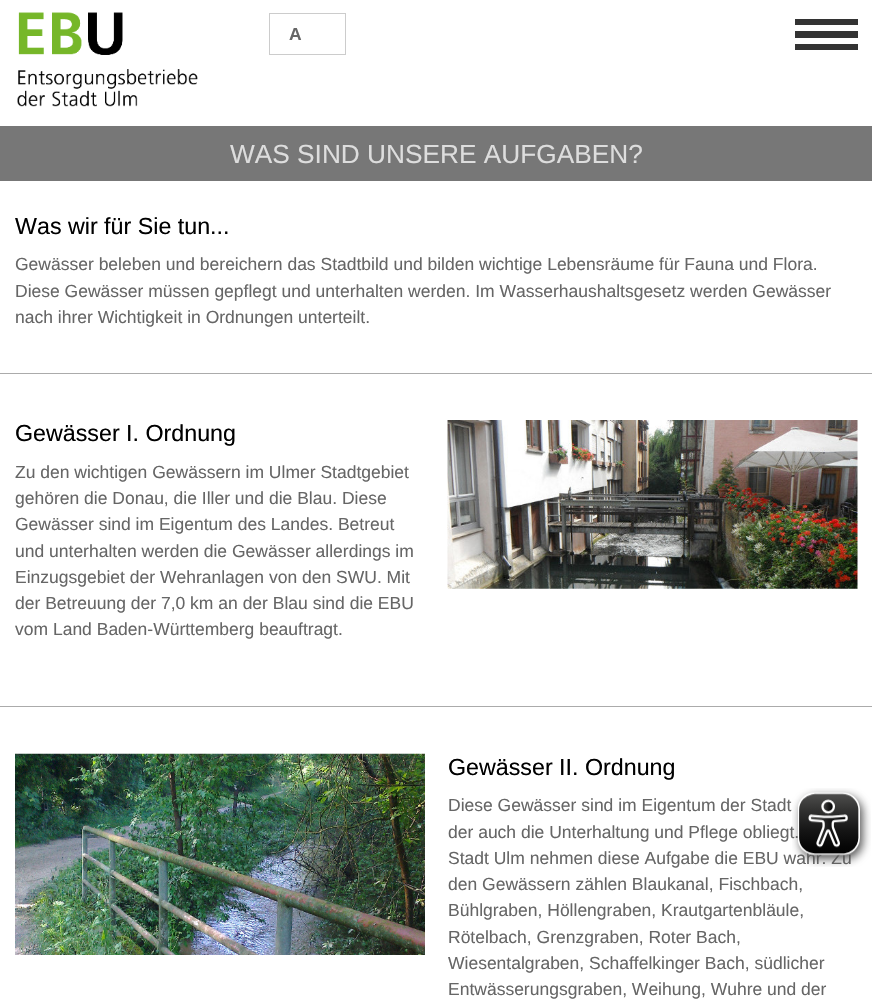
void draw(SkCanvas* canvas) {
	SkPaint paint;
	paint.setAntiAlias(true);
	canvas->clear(0xffffffff);
	canvas->drawImageRect(SkImages::DeferredFromEncodedData(SkData::MakeFromFileName("img1.png")), SkRect::MakeXYWH(17, 12, 181, 95), SkSamplingOptions());
	paint.setStroke(true);
	paint.setStrokeWidth(1);
	paint.setColor(0xffcccccc);
	canvas->drawRect(SkRect::MakeXYWH(269.5, 13.5, 76, 41), paint);
	SkFont f1(fontMgr->matchFamilyStyle("Liberation Sans", SkFontStyle::Bold()), 17.5);
	f1.setSubpixel(true);
	paint.setStroke(false);
	paint.setColor(0xff666666);
	canvas->drawString("A", 289, 40, f1, paint);
	paint.setColor(0xff333333);
	canvas->drawRect(SkRect::MakeXYWH(795, 19, 63, 6), paint);
	canvas->drawRect(SkRect::MakeXYWH(795, 31, 63, 7), paint);
	canvas->drawRect(SkRect::MakeXYWH(795, 44, 63, 6), paint);
	paint.setColor(0xff777777);
	canvas->drawRect(SkRect::MakeXYWH(0, 126, 872, 55), paint);
	SkFont f2(fontMgr->matchFamilyStyle("Liberation Sans", SkFontStyle::Normal()), 26.25);
	f2.setSubpixel(true);
	paint.setColor(0xffdddddd);
	canvas->drawString("WAS SIND UNSERE AUFGABEN?", 230, 163, f2, paint);
	SkFont f3(fontMgr->matchFamilyStyle("Liberation Sans", SkFontStyle::Normal()), 23.25);
	f3.setSubpixel(true);
	paint.setColor(0xff000000);
	canvas->drawString("Was wir für Sie tun...", 15, 234, f3, paint);
	SkFont f4(fontMgr->matchFamilyStyle("Liberation Sans", SkFontStyle::Normal()), 17.5);
	f4.setSubpixel(true);
	paint.setColor(0xff666666);
	canvas->drawString("Gewässer beleben und bereichern das Stadtbild und bilden wichtige Lebensräume für Fauna und Flora.", 15, 270, f4, paint);
	canvas->drawString("Diese Gewässer müssen gepflegt und unterhalten werden. Im Wasserhaushaltsgesetz werden Gewässer", 15, 297, f4, paint);
	canvas->drawString("nach ihrer Wichtigkeit in Ordnungen unterteilt.", 15, 323, f4, paint);
	paint.setColor(0xffababab);
	canvas->drawRect(SkRect::MakeXYWH(0, 373, 872, 1), paint);
	paint.setColor(0xff000000);
	canvas->drawString("Gewässer I. Ordnung", 15, 441, f3, paint);
	paint.setColor(0xff666666);
	canvas->drawString("Zu den wichtigen Gewässern im Ulmer Stadtgebiet", 15, 478, f4, paint);
	canvas->drawString("gehören die Donau, die Iller und die Blau. Diese", 15, 504, f4, paint);
	canvas->drawString("Gewässer sind im Eigentum des Landes. Betreut", 15, 530, f4, paint);
	canvas->drawString("und unterhalten werden die Gewässer allerdings im", 15, 557, f4, paint);
	canvas->drawString("Einzugsgebiet der Wehranlagen von den SWU. Mit", 15, 583, f4, paint);
	canvas->drawString("der Betreuung der 7,0 km an der Blau sind die EBU", 15, 609, f4, paint);
	canvas->drawString("vom Land Baden-Württemberg beauftragt.", 15, 635, f4, paint);
	canvas->drawImageRect(SkImages::DeferredFromEncodedData(SkData::MakeFromFileName("img2.png")), SkRect::MakeXYWH(447, 420, 411, 169), SkSamplingOptions());
	paint.setColor(0xffababab);
	canvas->drawRect(SkRect::MakeXYWH(0, 706, 872, 1), paint);
	canvas->drawImageRect(SkImages::DeferredFromEncodedData(SkData::MakeFromFileName("img3.png")), SkRect::MakeXYWH(15, 753, 410, 202), SkSamplingOptions());
	paint.setColor(0xff000000);
	canvas->drawString("Gewässer II. Ordnung", 448, 775, f3, paint);
	paint.setColor(0xff666666);
	canvas->drawString("Diese Gewässer sind im Eigentum der Stadt", 448, 811, f4, paint);
	canvas->drawString("der auch die Unterhaltung und Pflege obliegt.", 448, 838, f4, paint);
	canvas->drawString("Stadt Ulm nehmen diese Aufgabe die EBU wahr. Zu", 448, 864, f4, paint);
	canvas->drawString("den Gewässern zählen Blaukanal, Fischbach,", 448, 890, f4, paint);
	canvas->drawString("Bühlgraben, Höllengraben, Krautgartenbläule,", 448, 916, f4, paint);
	canvas->drawString("Rötelbach, Grenzgraben, Roter Bach,", 448, 943, f4, paint);
	canvas->drawString("Wiesentalgraben, Schaffelkinger Bach, südlicher", 448, 969, f4, paint);
	canvas->drawString("Entwässerungsgraben, Weihung, Wuhre und der", 448, 995, f4, paint);
	canvas->drawImageRect(SkImages::DeferredFromEncodedData(SkData::MakeFromFileName("img4.png")), SkRect::MakeXYWH(792, 788, 79, 79), SkSamplingOptions());
}
